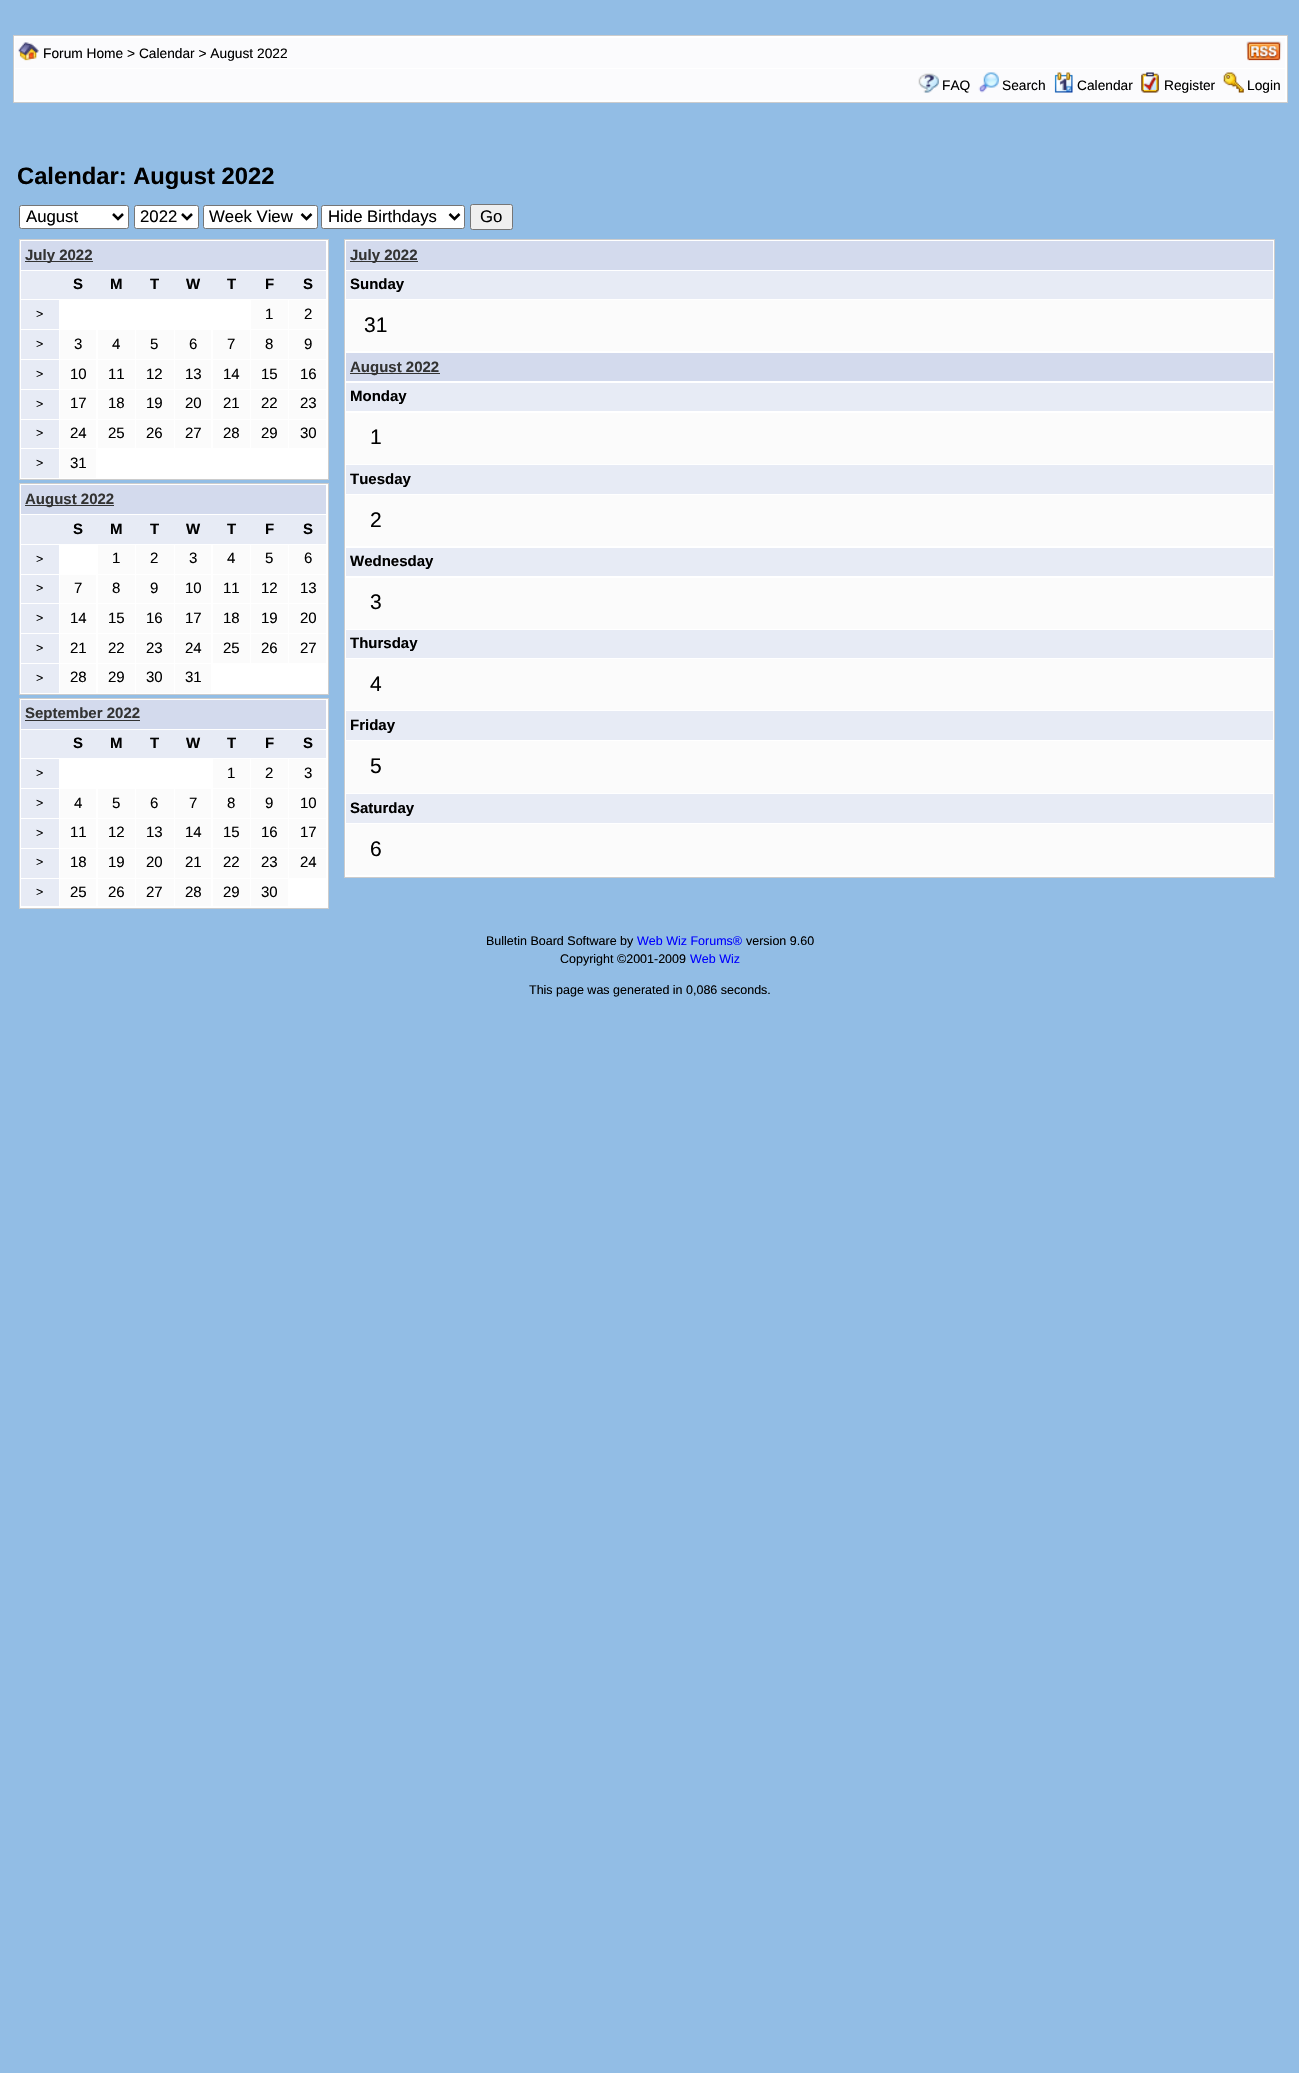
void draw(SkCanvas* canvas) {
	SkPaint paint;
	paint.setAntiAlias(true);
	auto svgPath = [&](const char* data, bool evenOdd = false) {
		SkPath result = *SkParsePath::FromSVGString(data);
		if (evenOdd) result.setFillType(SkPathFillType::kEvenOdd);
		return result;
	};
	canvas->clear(0xff92bde5);
	paint.setColor(0xffffffff);
	canvas->drawRect(SkRect::MakeXYWH(13.5, 35.5, 1274, 67), paint);
	paint.setStroke(true);
	paint.setStrokeWidth(1);
	paint.setColor(0xffcccccc);
	canvas->drawRect(SkRect::MakeXYWH(13.5, 35.5, 1274, 67), paint);
	paint.setStroke(false);
	paint.setColor(0xfffbfbfd);
	canvas->drawRect(SkRect::MakeXYWH(15, 38, 1270, 30), paint);
	canvas->drawImageRect(SkImages::DeferredFromEncodedData(SkData::MakeFromFileName("img1.png")), SkRect::MakeXYWH(18, 42, 21, 19), SkSamplingOptions());
	SkFont f1(fontMgr->matchFamilyStyle("Liberation Sans", SkFontStyle::Normal()), 13.75);
	f1.setSubpixel(true);
	paint.setColor(0xff000000);
	canvas->drawString("Forum Home > Calendar > August 2022", 43, 58, f1, paint);
	canvas->drawImageRect(SkImages::DeferredFromEncodedData(SkData::MakeFromFileName("img2.png")), SkRect::MakeXYWH(1246, 41, 36, 20), SkSamplingOptions());
	paint.setColor(0xfffbfbfd);
	canvas->drawRect(SkRect::MakeXYWH(15, 69, 1270, 31), paint);
	canvas->drawImageRect(SkImages::DeferredFromEncodedData(SkData::MakeFromFileName("img3.png")), SkRect::MakeXYWH(918, 73, 21, 20), SkSamplingOptions());
	paint.setColor(0xff000000);
	canvas->drawString("FAQ", 942, 90, f1, paint);
	canvas->drawImageRect(SkImages::DeferredFromEncodedData(SkData::MakeFromFileName("img4.png")), SkRect::MakeXYWH(978, 72, 21, 21), SkSamplingOptions());
	canvas->drawString("Search", 1002, 90, f1, paint);
	canvas->drawImageRect(SkImages::DeferredFromEncodedData(SkData::MakeFromFileName("img5.png")), SkRect::MakeXYWH(1054, 72, 19, 21), SkSamplingOptions());
	canvas->drawString("Calendar", 1077, 90, f1, paint);
	canvas->drawImageRect(SkImages::DeferredFromEncodedData(SkData::MakeFromFileName("img6.png")), SkRect::MakeXYWH(1141, 72, 18, 21), SkSamplingOptions());
	canvas->drawString("Register", 1164, 90, f1, paint);
	canvas->drawImageRect(SkImages::DeferredFromEncodedData(SkData::MakeFromFileName("img7.png")), SkRect::MakeXYWH(1223, 72, 21, 21), SkSamplingOptions());
	canvas->drawString("Login", 1247, 90, f1, paint);
	SkFont f2(fontMgr->matchFamilyStyle("Liberation Sans", SkFontStyle::Bold()), 23.75);
	f2.setSubpixel(true);
	canvas->drawString("Calendar: August 2022", 17, 184, f2, paint);
	paint.setColor(0xffffffff);
	canvas->drawRoundRect(SkRect::MakeXYWH(19.5, 205.5, 109, 23), 2, 2, paint);
	paint.setStroke(true);
	paint.setColor(0xff767676);
	canvas->drawRoundRect(SkRect::MakeXYWH(19.5, 205.5, 109, 23), 2, 2, paint);
	paint.setStrokeWidth(2.5);
	paint.setColor(0xff000000);
	canvas->drawPath(svgPath("M113 214L118 219L123 214"), paint);
	SkFont f3(fontMgr->matchFamilyStyle("Liberation Sans", SkFontStyle::Normal()), 16.75);
	f3.setSubpixel(true);
	paint.setStroke(false);
	canvas->drawString("August", 26, 222, f3, paint);
	paint.setColor(0xffffffff);
	canvas->drawRoundRect(SkRect::MakeXYWH(134.5, 205.5, 64, 23), 2, 2, paint);
	paint.setStroke(true);
	paint.setStrokeWidth(1);
	paint.setColor(0xff767676);
	canvas->drawRoundRect(SkRect::MakeXYWH(134.5, 205.5, 64, 23), 2, 2, paint);
	paint.setStrokeWidth(2.5);
	paint.setColor(0xff000000);
	canvas->drawPath(svgPath("M182 214L187 219L192 214"), paint);
	paint.setStroke(false);
	canvas->drawString("2022", 140, 222, f3, paint);
	paint.setColor(0xffffffff);
	canvas->drawRoundRect(SkRect::MakeXYWH(203.5, 205.5, 114, 23), 2, 2, paint);
	paint.setStroke(true);
	paint.setStrokeWidth(1);
	paint.setColor(0xff767676);
	canvas->drawRoundRect(SkRect::MakeXYWH(203.5, 205.5, 114, 23), 2, 2, paint);
	paint.setStrokeWidth(2.5);
	paint.setColor(0xff000000);
	canvas->drawPath(svgPath("M301.5 214L306.5 219L311.5 214"), paint);
	paint.setStroke(false);
	canvas->drawString("Week View", 209, 222, f3, paint);
	paint.setColor(0xffffffff);
	canvas->drawRoundRect(SkRect::MakeXYWH(321.5, 205.5, 143, 23), 2, 2, paint);
	paint.setStroke(true);
	paint.setStrokeWidth(1);
	paint.setColor(0xff767676);
	canvas->drawRoundRect(SkRect::MakeXYWH(321.5, 205.5, 143, 23), 2, 2, paint);
	paint.setStrokeWidth(2.5);
	paint.setColor(0xff000000);
	canvas->drawPath(svgPath("M449.5 214L454.5 219L459.5 214"), paint);
	paint.setStroke(false);
	canvas->drawString("Hide Birthdays", 328, 222, f3, paint);
	paint.setColor(0xffefefef);
	canvas->drawRoundRect(SkRect::MakeXYWH(470.5, 204.5, 42, 25), 2, 2, paint);
	paint.setStroke(true);
	paint.setStrokeWidth(1);
	paint.setColor(0xff767676);
	canvas->drawRoundRect(SkRect::MakeXYWH(470.5, 204.5, 42, 25), 2, 2, paint);
	paint.setStroke(false);
	paint.setColor(0xff000000);
	canvas->drawString("Go", 480, 222, f3, paint);
	paint.setColor(0xffffffff);
	canvas->drawRect(SkRect::MakeXYWH(19.5, 239.5, 309, 240), paint);
	paint.setStroke(true);
	paint.setColor(0xffcccccc);
	canvas->drawRect(SkRect::MakeXYWH(19.5, 239.5, 309, 240), paint);
	paint.setStroke(false);
	paint.setColor(0xffd3daed);
	canvas->drawRect(SkRect::MakeXYWH(21, 241, 305, 29), paint);
	paint.setColor(0xff333333);
	canvas->drawRect(SkRect::MakeXYWH(25, 261, 68, 1), paint);
	SkFont f4(fontMgr->matchFamilyStyle("Liberation Sans", SkFontStyle::Bold()), 15);
	f4.setSubpixel(true);
	canvas->drawString("July 2022", 25, 260, f4, paint);
	paint.setColor(0xffe7ebf5);
	canvas->drawRect(SkRect::MakeXYWH(21, 271, 305, 28), paint);
	paint.setColor(0xff000000);
	canvas->drawString("S", 73, 289, f4, paint);
	canvas->drawString("M", 110, 289, f4, paint);
	canvas->drawString("T", 150, 289, f4, paint);
	canvas->drawString("W", 186, 289, f4, paint);
	canvas->drawString("T", 227, 289, f4, paint);
	canvas->drawString("F", 265, 289, f4, paint);
	canvas->drawString("S", 303, 289, f4, paint);
	paint.setColor(0xffe7ebf5);
	canvas->drawRect(SkRect::MakeXYWH(21, 300, 38, 29), paint);
	SkFont f5(fontMgr->matchFamilyStyle("Liberation Sans", SkFontStyle::Normal()), 12.5);
	f5.setSubpixel(true);
	paint.setColor(0xff000000);
	canvas->drawString(">", 36, 318, f5, paint);
	paint.setColor(0xfffbfbfb);
	canvas->drawRect(SkRect::MakeXYWH(251, 300, 37, 29), paint);
	SkFont f6(fontMgr->matchFamilyStyle("Liberation Sans", SkFontStyle::Normal()), 15);
	f6.setSubpixel(true);
	paint.setColor(0xff000000);
	canvas->drawString("1", 265, 319, f6, paint);
	paint.setColor(0xfffbfbfb);
	canvas->drawRect(SkRect::MakeXYWH(289, 300, 37, 29), paint);
	paint.setColor(0xff000000);
	canvas->drawString("2", 304, 319, f6, paint);
	paint.setColor(0xffe7ebf5);
	canvas->drawRect(SkRect::MakeXYWH(21, 330, 38, 29), paint);
	paint.setColor(0xff000000);
	canvas->drawString(">", 36, 348, f5, paint);
	paint.setColor(0xfffbfbfb);
	canvas->drawRect(SkRect::MakeXYWH(60, 330, 36, 29), paint);
	paint.setColor(0xff000000);
	canvas->drawString("3", 74, 349, f6, paint);
	paint.setColor(0xfffbfbfb);
	canvas->drawRect(SkRect::MakeXYWH(98, 330, 37, 29), paint);
	paint.setColor(0xff000000);
	canvas->drawString("4", 112, 349, f6, paint);
	paint.setColor(0xfffbfbfb);
	canvas->drawRect(SkRect::MakeXYWH(136, 330, 38, 29), paint);
	paint.setColor(0xff000000);
	canvas->drawString("5", 150, 349, f6, paint);
	paint.setColor(0xfffbfbfb);
	canvas->drawRect(SkRect::MakeXYWH(175, 330, 36, 29), paint);
	paint.setColor(0xff000000);
	canvas->drawString("6", 189, 349, f6, paint);
	paint.setColor(0xfffbfbfb);
	canvas->drawRect(SkRect::MakeXYWH(213, 330, 37, 29), paint);
	paint.setColor(0xff000000);
	canvas->drawString("7", 227, 349, f6, paint);
	paint.setColor(0xfffbfbfb);
	canvas->drawRect(SkRect::MakeXYWH(251, 330, 37, 29), paint);
	paint.setColor(0xff000000);
	canvas->drawString("8", 265, 349, f6, paint);
	paint.setColor(0xfffbfbfb);
	canvas->drawRect(SkRect::MakeXYWH(289, 330, 37, 29), paint);
	paint.setColor(0xff000000);
	canvas->drawString("9", 304, 349, f6, paint);
	paint.setColor(0xffe7ebf5);
	canvas->drawRect(SkRect::MakeXYWH(21, 360, 38, 29), paint);
	paint.setColor(0xff000000);
	canvas->drawString(">", 36, 378, f5, paint);
	paint.setColor(0xfffbfbfb);
	canvas->drawRect(SkRect::MakeXYWH(60, 360, 36, 29), paint);
	paint.setColor(0xff000000);
	canvas->drawString("10", 70, 379, f6, paint);
	paint.setColor(0xfffbfbfb);
	canvas->drawRect(SkRect::MakeXYWH(98, 360, 37, 29), paint);
	paint.setColor(0xff000000);
	canvas->drawString("11", 108, 379, f6, paint);
	paint.setColor(0xfffbfbfb);
	canvas->drawRect(SkRect::MakeXYWH(136, 360, 38, 29), paint);
	paint.setColor(0xff000000);
	canvas->drawString("12", 146, 379, f6, paint);
	paint.setColor(0xfffbfbfb);
	canvas->drawRect(SkRect::MakeXYWH(175, 360, 36, 29), paint);
	paint.setColor(0xff000000);
	canvas->drawString("13", 185, 379, f6, paint);
	paint.setColor(0xfffbfbfb);
	canvas->drawRect(SkRect::MakeXYWH(213, 360, 37, 29), paint);
	paint.setColor(0xff000000);
	canvas->drawString("14", 223, 379, f6, paint);
	paint.setColor(0xfffbfbfb);
	canvas->drawRect(SkRect::MakeXYWH(251, 360, 37, 29), paint);
	paint.setColor(0xff000000);
	canvas->drawString("15", 261, 379, f6, paint);
	paint.setColor(0xfffbfbfb);
	canvas->drawRect(SkRect::MakeXYWH(289, 360, 37, 29), paint);
	paint.setColor(0xff000000);
	canvas->drawString("16", 300, 379, f6, paint);
	paint.setColor(0xffe7ebf5);
	canvas->drawRect(SkRect::MakeXYWH(21, 390, 38, 29), paint);
	paint.setColor(0xff000000);
	canvas->drawString(">", 36, 408, f5, paint);
	paint.setColor(0xfffbfbfb);
	canvas->drawRect(SkRect::MakeXYWH(60, 390, 36, 29), paint);
	paint.setColor(0xff000000);
	canvas->drawString("17", 70, 408, f6, paint);
	paint.setColor(0xfffbfbfb);
	canvas->drawRect(SkRect::MakeXYWH(98, 390, 37, 29), paint);
	paint.setColor(0xff000000);
	canvas->drawString("18", 108, 408, f6, paint);
	paint.setColor(0xfffbfbfb);
	canvas->drawRect(SkRect::MakeXYWH(136, 390, 38, 29), paint);
	paint.setColor(0xff000000);
	canvas->drawString("19", 146, 408, f6, paint);
	paint.setColor(0xfffbfbfb);
	canvas->drawRect(SkRect::MakeXYWH(175, 390, 36, 29), paint);
	paint.setColor(0xff000000);
	canvas->drawString("20", 185, 408, f6, paint);
	paint.setColor(0xfffbfbfb);
	canvas->drawRect(SkRect::MakeXYWH(213, 390, 37, 29), paint);
	paint.setColor(0xff000000);
	canvas->drawString("21", 223, 408, f6, paint);
	paint.setColor(0xfffbfbfb);
	canvas->drawRect(SkRect::MakeXYWH(251, 390, 37, 29), paint);
	paint.setColor(0xff000000);
	canvas->drawString("22", 261, 408, f6, paint);
	paint.setColor(0xfffbfbfb);
	canvas->drawRect(SkRect::MakeXYWH(289, 390, 37, 29), paint);
	paint.setColor(0xff000000);
	canvas->drawString("23", 300, 408, f6, paint);
	paint.setColor(0xffe7ebf5);
	canvas->drawRect(SkRect::MakeXYWH(21, 420, 38, 28), paint);
	paint.setColor(0xff000000);
	canvas->drawString(">", 36, 437, f5, paint);
	paint.setColor(0xfffbfbfb);
	canvas->drawRect(SkRect::MakeXYWH(60, 420, 36, 28), paint);
	paint.setColor(0xff000000);
	canvas->drawString("24", 70, 438, f6, paint);
	paint.setColor(0xfffbfbfb);
	canvas->drawRect(SkRect::MakeXYWH(98, 420, 37, 28), paint);
	paint.setColor(0xff000000);
	canvas->drawString("25", 108, 438, f6, paint);
	paint.setColor(0xfffbfbfb);
	canvas->drawRect(SkRect::MakeXYWH(136, 420, 38, 28), paint);
	paint.setColor(0xff000000);
	canvas->drawString("26", 146, 438, f6, paint);
	paint.setColor(0xfffbfbfb);
	canvas->drawRect(SkRect::MakeXYWH(175, 420, 36, 28), paint);
	paint.setColor(0xff000000);
	canvas->drawString("27", 185, 438, f6, paint);
	paint.setColor(0xfffbfbfb);
	canvas->drawRect(SkRect::MakeXYWH(213, 420, 37, 28), paint);
	paint.setColor(0xff000000);
	canvas->drawString("28", 223, 438, f6, paint);
	paint.setColor(0xfffbfbfb);
	canvas->drawRect(SkRect::MakeXYWH(251, 420, 37, 28), paint);
	paint.setColor(0xff000000);
	canvas->drawString("29", 261, 438, f6, paint);
	paint.setColor(0xfffbfbfb);
	canvas->drawRect(SkRect::MakeXYWH(289, 420, 37, 28), paint);
	paint.setColor(0xff000000);
	canvas->drawString("30", 300, 438, f6, paint);
	paint.setColor(0xffe7ebf5);
	canvas->drawRect(SkRect::MakeXYWH(21, 449, 38, 29), paint);
	paint.setColor(0xff000000);
	canvas->drawString(">", 36, 467, f5, paint);
	paint.setColor(0xfffbfbfb);
	canvas->drawRect(SkRect::MakeXYWH(60, 449, 36, 29), paint);
	paint.setColor(0xff000000);
	canvas->drawString("31", 70, 468, f6, paint);
	paint.setColor(0xffffffff);
	canvas->drawRect(SkRect::MakeXYWH(344.5, 239.5, 930, 638), paint);
	paint.setStroke(true);
	paint.setColor(0xffcccccc);
	canvas->drawRect(SkRect::MakeXYWH(344.5, 239.5, 930, 638), paint);
	paint.setStroke(false);
	paint.setColor(0xffd3daed);
	canvas->drawRect(SkRect::MakeXYWH(346, 241, 927, 29), paint);
	paint.setColor(0xff333333);
	canvas->drawRect(SkRect::MakeXYWH(350, 261, 68, 1), paint);
	canvas->drawString("July 2022", 350, 260, f4, paint);
	paint.setColor(0xffe7ebf5);
	canvas->drawRect(SkRect::MakeXYWH(346, 271, 927, 28), paint);
	paint.setColor(0xff000000);
	canvas->drawString("Sunday", 350, 289, f4, paint);
	paint.setColor(0xfffbfbfb);
	canvas->drawRect(SkRect::MakeXYWH(346, 300, 927, 51), paint);
	SkFont f7(fontMgr->matchFamilyStyle("Liberation Sans", SkFontStyle::Normal()), 21);
	f7.setSubpixel(true);
	paint.setColor(0xff000000);
	canvas->drawString("31", 364, 332, f7, paint);
	paint.setColor(0xffd3daed);
	canvas->drawRect(SkRect::MakeXYWH(346, 353, 927, 28), paint);
	paint.setColor(0xff333333);
	canvas->drawRect(SkRect::MakeXYWH(350, 373, 90, 1), paint);
	canvas->drawString("August 2022", 350, 372, f4, paint);
	paint.setColor(0xffe7ebf5);
	canvas->drawRect(SkRect::MakeXYWH(346, 383, 927, 28), paint);
	paint.setColor(0xff000000);
	canvas->drawString("Monday", 350, 401, f4, paint);
	paint.setColor(0xfffbfbfb);
	canvas->drawRect(SkRect::MakeXYWH(346, 413, 927, 51), paint);
	paint.setColor(0xff000000);
	canvas->drawString("1", 370, 444, f7, paint);
	paint.setColor(0xffe7ebf5);
	canvas->drawRect(SkRect::MakeXYWH(346, 465, 927, 29), paint);
	paint.setColor(0xff000000);
	canvas->drawString("Tuesday", 350, 484, f4, paint);
	paint.setColor(0xfffbfbfb);
	canvas->drawRect(SkRect::MakeXYWH(346, 495, 927, 51), paint);
	paint.setColor(0xff000000);
	canvas->drawString("2", 370, 527, f7, paint);
	paint.setColor(0xffe7ebf5);
	canvas->drawRect(SkRect::MakeXYWH(346, 548, 927, 28), paint);
	paint.setColor(0xff000000);
	canvas->drawString("Wednesday", 350, 566, f4, paint);
	paint.setColor(0xfffbfbfb);
	canvas->drawRect(SkRect::MakeXYWH(346, 578, 927, 51), paint);
	paint.setColor(0xff000000);
	canvas->drawString("3", 370, 609, f7, paint);
	paint.setColor(0xffe7ebf5);
	canvas->drawRect(SkRect::MakeXYWH(346, 630, 927, 28), paint);
	paint.setColor(0xff000000);
	canvas->drawString("Thursday", 350, 648, f4, paint);
	paint.setColor(0xfffbfbfb);
	canvas->drawRect(SkRect::MakeXYWH(346, 659, 927, 51), paint);
	paint.setColor(0xff000000);
	canvas->drawString("4", 370, 691, f7, paint);
	paint.setColor(0xffe7ebf5);
	canvas->drawRect(SkRect::MakeXYWH(346, 711, 927, 29), paint);
	paint.setColor(0xff000000);
	canvas->drawString("Friday", 350, 730, f4, paint);
	paint.setColor(0xfffbfbfb);
	canvas->drawRect(SkRect::MakeXYWH(346, 741, 927, 52), paint);
	paint.setColor(0xff000000);
	canvas->drawString("5", 370, 773, f7, paint);
	paint.setColor(0xffe7ebf5);
	canvas->drawRect(SkRect::MakeXYWH(346, 794, 927, 29), paint);
	paint.setColor(0xff000000);
	canvas->drawString("Saturday", 350, 813, f4, paint);
	paint.setColor(0xfffbfbfb);
	canvas->drawRect(SkRect::MakeXYWH(346, 824, 927, 51), paint);
	paint.setColor(0xff000000);
	canvas->drawString("6", 370, 856, f7, paint);
	paint.setColor(0xffffffff);
	canvas->drawRect(SkRect::MakeXYWH(19.5, 483.5, 309, 211), paint);
	paint.setStroke(true);
	paint.setColor(0xffcccccc);
	canvas->drawRect(SkRect::MakeXYWH(19.5, 483.5, 309, 211), paint);
	paint.setStroke(false);
	paint.setColor(0xffd3daed);
	canvas->drawRect(SkRect::MakeXYWH(21, 485, 305, 29), paint);
	paint.setColor(0xff333333);
	canvas->drawRect(SkRect::MakeXYWH(25, 505, 89, 1), paint);
	canvas->drawString("August 2022", 25, 504, f4, paint);
	paint.setColor(0xffe7ebf5);
	canvas->drawRect(SkRect::MakeXYWH(21, 515, 305, 29), paint);
	paint.setColor(0xff000000);
	canvas->drawString("S", 73, 534, f4, paint);
	canvas->drawString("M", 110, 534, f4, paint);
	canvas->drawString("T", 150, 534, f4, paint);
	canvas->drawString("W", 186, 534, f4, paint);
	canvas->drawString("T", 227, 534, f4, paint);
	canvas->drawString("F", 265, 534, f4, paint);
	canvas->drawString("S", 303, 534, f4, paint);
	paint.setColor(0xffe7ebf5);
	canvas->drawRect(SkRect::MakeXYWH(21, 545, 38, 29), paint);
	paint.setColor(0xff000000);
	canvas->drawString(">", 36, 563, f5, paint);
	paint.setColor(0xfffbfbfb);
	canvas->drawRect(SkRect::MakeXYWH(98, 545, 37, 29), paint);
	paint.setColor(0xff000000);
	canvas->drawString("1", 112, 563, f6, paint);
	paint.setColor(0xfffbfbfb);
	canvas->drawRect(SkRect::MakeXYWH(136, 545, 38, 29), paint);
	paint.setColor(0xff000000);
	canvas->drawString("2", 150, 563, f6, paint);
	paint.setColor(0xfffbfbfb);
	canvas->drawRect(SkRect::MakeXYWH(175, 545, 36, 29), paint);
	paint.setColor(0xff000000);
	canvas->drawString("3", 189, 563, f6, paint);
	paint.setColor(0xfffbfbfb);
	canvas->drawRect(SkRect::MakeXYWH(213, 545, 37, 29), paint);
	paint.setColor(0xff000000);
	canvas->drawString("4", 227, 563, f6, paint);
	paint.setColor(0xfffbfbfb);
	canvas->drawRect(SkRect::MakeXYWH(251, 545, 37, 29), paint);
	paint.setColor(0xff000000);
	canvas->drawString("5", 265, 563, f6, paint);
	paint.setColor(0xfffbfbfb);
	canvas->drawRect(SkRect::MakeXYWH(289, 545, 37, 29), paint);
	paint.setColor(0xff000000);
	canvas->drawString("6", 304, 563, f6, paint);
	paint.setColor(0xffe7ebf5);
	canvas->drawRect(SkRect::MakeXYWH(21, 575, 38, 28), paint);
	paint.setColor(0xff000000);
	canvas->drawString(">", 36, 592, f5, paint);
	paint.setColor(0xfffbfbfb);
	canvas->drawRect(SkRect::MakeXYWH(60, 575, 36, 28), paint);
	paint.setColor(0xff000000);
	canvas->drawString("7", 74, 593, f6, paint);
	paint.setColor(0xfffbfbfb);
	canvas->drawRect(SkRect::MakeXYWH(98, 575, 37, 28), paint);
	paint.setColor(0xff000000);
	canvas->drawString("8", 112, 593, f6, paint);
	paint.setColor(0xfffbfbfb);
	canvas->drawRect(SkRect::MakeXYWH(136, 575, 38, 28), paint);
	paint.setColor(0xff000000);
	canvas->drawString("9", 150, 593, f6, paint);
	paint.setColor(0xfffbfbfb);
	canvas->drawRect(SkRect::MakeXYWH(175, 575, 36, 28), paint);
	paint.setColor(0xff000000);
	canvas->drawString("10", 185, 593, f6, paint);
	paint.setColor(0xfffbfbfb);
	canvas->drawRect(SkRect::MakeXYWH(213, 575, 37, 28), paint);
	paint.setColor(0xff000000);
	canvas->drawString("11", 223, 593, f6, paint);
	paint.setColor(0xfffbfbfb);
	canvas->drawRect(SkRect::MakeXYWH(251, 575, 37, 28), paint);
	paint.setColor(0xff000000);
	canvas->drawString("12", 261, 593, f6, paint);
	paint.setColor(0xfffbfbfb);
	canvas->drawRect(SkRect::MakeXYWH(289, 575, 37, 28), paint);
	paint.setColor(0xff000000);
	canvas->drawString("13", 300, 593, f6, paint);
	paint.setColor(0xffe7ebf5);
	canvas->drawRect(SkRect::MakeXYWH(21, 604, 38, 29), paint);
	paint.setColor(0xff000000);
	canvas->drawString(">", 36, 622, f5, paint);
	paint.setColor(0xfffbfbfb);
	canvas->drawRect(SkRect::MakeXYWH(60, 604, 36, 29), paint);
	paint.setColor(0xff000000);
	canvas->drawString("14", 70, 623, f6, paint);
	paint.setColor(0xfffbfbfb);
	canvas->drawRect(SkRect::MakeXYWH(98, 604, 37, 29), paint);
	paint.setColor(0xff000000);
	canvas->drawString("15", 108, 623, f6, paint);
	paint.setColor(0xfffbfbfb);
	canvas->drawRect(SkRect::MakeXYWH(136, 604, 38, 29), paint);
	paint.setColor(0xff000000);
	canvas->drawString("16", 146, 623, f6, paint);
	paint.setColor(0xfffbfbfb);
	canvas->drawRect(SkRect::MakeXYWH(175, 604, 36, 29), paint);
	paint.setColor(0xff000000);
	canvas->drawString("17", 185, 623, f6, paint);
	paint.setColor(0xfffbfbfb);
	canvas->drawRect(SkRect::MakeXYWH(213, 604, 37, 29), paint);
	paint.setColor(0xff000000);
	canvas->drawString("18", 223, 623, f6, paint);
	paint.setColor(0xfffbfbfb);
	canvas->drawRect(SkRect::MakeXYWH(251, 604, 37, 29), paint);
	paint.setColor(0xff000000);
	canvas->drawString("19", 261, 623, f6, paint);
	paint.setColor(0xfffbfbfb);
	canvas->drawRect(SkRect::MakeXYWH(289, 604, 37, 29), paint);
	paint.setColor(0xff000000);
	canvas->drawString("20", 300, 623, f6, paint);
	paint.setColor(0xffe7ebf5);
	canvas->drawRect(SkRect::MakeXYWH(21, 634, 38, 29), paint);
	paint.setColor(0xff000000);
	canvas->drawString(">", 36, 652, f5, paint);
	paint.setColor(0xfffbfbfb);
	canvas->drawRect(SkRect::MakeXYWH(60, 634, 36, 29), paint);
	paint.setColor(0xff000000);
	canvas->drawString("21", 70, 653, f6, paint);
	paint.setColor(0xfffbfbfb);
	canvas->drawRect(SkRect::MakeXYWH(98, 634, 37, 29), paint);
	paint.setColor(0xff000000);
	canvas->drawString("22", 108, 653, f6, paint);
	paint.setColor(0xfffbfbfb);
	canvas->drawRect(SkRect::MakeXYWH(136, 634, 38, 29), paint);
	paint.setColor(0xff000000);
	canvas->drawString("23", 146, 653, f6, paint);
	paint.setColor(0xfffbfbfb);
	canvas->drawRect(SkRect::MakeXYWH(175, 634, 36, 29), paint);
	paint.setColor(0xff000000);
	canvas->drawString("24", 185, 653, f6, paint);
	paint.setColor(0xfffbfbfb);
	canvas->drawRect(SkRect::MakeXYWH(213, 634, 37, 29), paint);
	paint.setColor(0xff000000);
	canvas->drawString("25", 223, 653, f6, paint);
	paint.setColor(0xfffbfbfb);
	canvas->drawRect(SkRect::MakeXYWH(251, 634, 37, 29), paint);
	paint.setColor(0xff000000);
	canvas->drawString("26", 261, 653, f6, paint);
	paint.setColor(0xfffbfbfb);
	canvas->drawRect(SkRect::MakeXYWH(289, 634, 37, 29), paint);
	paint.setColor(0xff000000);
	canvas->drawString("27", 300, 653, f6, paint);
	paint.setColor(0xffe7ebf5);
	canvas->drawRect(SkRect::MakeXYWH(21, 664, 38, 29), paint);
	paint.setColor(0xff000000);
	canvas->drawString(">", 36, 682, f5, paint);
	paint.setColor(0xfffbfbfb);
	canvas->drawRect(SkRect::MakeXYWH(60, 664, 36, 29), paint);
	paint.setColor(0xff000000);
	canvas->drawString("28", 70, 682, f6, paint);
	paint.setColor(0xfffbfbfb);
	canvas->drawRect(SkRect::MakeXYWH(98, 664, 37, 29), paint);
	paint.setColor(0xff000000);
	canvas->drawString("29", 108, 682, f6, paint);
	paint.setColor(0xfffbfbfb);
	canvas->drawRect(SkRect::MakeXYWH(136, 664, 38, 29), paint);
	paint.setColor(0xff000000);
	canvas->drawString("30", 146, 682, f6, paint);
	paint.setColor(0xfffbfbfb);
	canvas->drawRect(SkRect::MakeXYWH(175, 664, 36, 29), paint);
	paint.setColor(0xff000000);
	canvas->drawString("31", 185, 682, f6, paint);
	paint.setColor(0xffffffff);
	canvas->drawRect(SkRect::MakeXYWH(19.5, 698.5, 309, 210), paint);
	paint.setStroke(true);
	paint.setColor(0xffcccccc);
	canvas->drawRect(SkRect::MakeXYWH(19.5, 698.5, 309, 210), paint);
	paint.setStroke(false);
	paint.setColor(0xffd3daed);
	canvas->drawRect(SkRect::MakeXYWH(21, 700, 305, 29), paint);
	paint.setColor(0xff333333);
	canvas->drawRect(SkRect::MakeXYWH(25, 720, 115, 1), paint);
	canvas->drawString("September 2022", 25, 718, f4, paint);
	paint.setColor(0xffe7ebf5);
	canvas->drawRect(SkRect::MakeXYWH(21, 730, 305, 28), paint);
	paint.setColor(0xff000000);
	canvas->drawString("S", 73, 748, f4, paint);
	canvas->drawString("M", 110, 748, f4, paint);
	canvas->drawString("T", 150, 748, f4, paint);
	canvas->drawString("W", 186, 748, f4, paint);
	canvas->drawString("T", 227, 748, f4, paint);
	canvas->drawString("F", 265, 748, f4, paint);
	canvas->drawString("S", 303, 748, f4, paint);
	paint.setColor(0xffe7ebf5);
	canvas->drawRect(SkRect::MakeXYWH(21, 759, 38, 29), paint);
	paint.setColor(0xff000000);
	canvas->drawString(">", 36, 777, f5, paint);
	paint.setColor(0xfffbfbfb);
	canvas->drawRect(SkRect::MakeXYWH(213, 759, 37, 29), paint);
	paint.setColor(0xff000000);
	canvas->drawString("1", 227, 778, f6, paint);
	paint.setColor(0xfffbfbfb);
	canvas->drawRect(SkRect::MakeXYWH(251, 759, 37, 29), paint);
	paint.setColor(0xff000000);
	canvas->drawString("2", 265, 778, f6, paint);
	paint.setColor(0xfffbfbfb);
	canvas->drawRect(SkRect::MakeXYWH(289, 759, 37, 29), paint);
	paint.setColor(0xff000000);
	canvas->drawString("3", 304, 778, f6, paint);
	paint.setColor(0xffe7ebf5);
	canvas->drawRect(SkRect::MakeXYWH(21, 789, 38, 29), paint);
	paint.setColor(0xff000000);
	canvas->drawString(">", 36, 807, f5, paint);
	paint.setColor(0xfffbfbfb);
	canvas->drawRect(SkRect::MakeXYWH(60, 789, 36, 29), paint);
	paint.setColor(0xff000000);
	canvas->drawString("4", 74, 808, f6, paint);
	paint.setColor(0xfffbfbfb);
	canvas->drawRect(SkRect::MakeXYWH(98, 789, 37, 29), paint);
	paint.setColor(0xff000000);
	canvas->drawString("5", 112, 808, f6, paint);
	paint.setColor(0xfffbfbfb);
	canvas->drawRect(SkRect::MakeXYWH(136, 789, 38, 29), paint);
	paint.setColor(0xff000000);
	canvas->drawString("6", 150, 808, f6, paint);
	paint.setColor(0xfffbfbfb);
	canvas->drawRect(SkRect::MakeXYWH(175, 789, 36, 29), paint);
	paint.setColor(0xff000000);
	canvas->drawString("7", 189, 808, f6, paint);
	paint.setColor(0xfffbfbfb);
	canvas->drawRect(SkRect::MakeXYWH(213, 789, 37, 29), paint);
	paint.setColor(0xff000000);
	canvas->drawString("8", 227, 808, f6, paint);
	paint.setColor(0xfffbfbfb);
	canvas->drawRect(SkRect::MakeXYWH(251, 789, 37, 29), paint);
	paint.setColor(0xff000000);
	canvas->drawString("9", 265, 808, f6, paint);
	paint.setColor(0xfffbfbfb);
	canvas->drawRect(SkRect::MakeXYWH(289, 789, 37, 29), paint);
	paint.setColor(0xff000000);
	canvas->drawString("10", 300, 808, f6, paint);
	paint.setColor(0xffe7ebf5);
	canvas->drawRect(SkRect::MakeXYWH(21, 819, 38, 29), paint);
	paint.setColor(0xff000000);
	canvas->drawString(">", 36, 837, f5, paint);
	paint.setColor(0xfffbfbfb);
	canvas->drawRect(SkRect::MakeXYWH(60, 819, 36, 29), paint);
	paint.setColor(0xff000000);
	canvas->drawString("11", 70, 837, f6, paint);
	paint.setColor(0xfffbfbfb);
	canvas->drawRect(SkRect::MakeXYWH(98, 819, 37, 29), paint);
	paint.setColor(0xff000000);
	canvas->drawString("12", 108, 837, f6, paint);
	paint.setColor(0xfffbfbfb);
	canvas->drawRect(SkRect::MakeXYWH(136, 819, 38, 29), paint);
	paint.setColor(0xff000000);
	canvas->drawString("13", 146, 837, f6, paint);
	paint.setColor(0xfffbfbfb);
	canvas->drawRect(SkRect::MakeXYWH(175, 819, 36, 29), paint);
	paint.setColor(0xff000000);
	canvas->drawString("14", 185, 837, f6, paint);
	paint.setColor(0xfffbfbfb);
	canvas->drawRect(SkRect::MakeXYWH(213, 819, 37, 29), paint);
	paint.setColor(0xff000000);
	canvas->drawString("15", 223, 837, f6, paint);
	paint.setColor(0xfffbfbfb);
	canvas->drawRect(SkRect::MakeXYWH(251, 819, 37, 29), paint);
	paint.setColor(0xff000000);
	canvas->drawString("16", 261, 837, f6, paint);
	paint.setColor(0xfffbfbfb);
	canvas->drawRect(SkRect::MakeXYWH(289, 819, 37, 29), paint);
	paint.setColor(0xff000000);
	canvas->drawString("17", 300, 837, f6, paint);
	paint.setColor(0xffe7ebf5);
	canvas->drawRect(SkRect::MakeXYWH(21, 849, 38, 29), paint);
	paint.setColor(0xff000000);
	canvas->drawString(">", 36, 866, f5, paint);
	paint.setColor(0xfffbfbfb);
	canvas->drawRect(SkRect::MakeXYWH(60, 849, 36, 29), paint);
	paint.setColor(0xff000000);
	canvas->drawString("18", 70, 867, f6, paint);
	paint.setColor(0xfffbfbfb);
	canvas->drawRect(SkRect::MakeXYWH(98, 849, 37, 29), paint);
	paint.setColor(0xff000000);
	canvas->drawString("19", 108, 867, f6, paint);
	paint.setColor(0xfffbfbfb);
	canvas->drawRect(SkRect::MakeXYWH(136, 849, 38, 29), paint);
	paint.setColor(0xff000000);
	canvas->drawString("20", 146, 867, f6, paint);
	paint.setColor(0xfffbfbfb);
	canvas->drawRect(SkRect::MakeXYWH(175, 849, 36, 29), paint);
	paint.setColor(0xff000000);
	canvas->drawString("21", 185, 867, f6, paint);
	paint.setColor(0xfffbfbfb);
	canvas->drawRect(SkRect::MakeXYWH(213, 849, 37, 29), paint);
	paint.setColor(0xff000000);
	canvas->drawString("22", 223, 867, f6, paint);
	paint.setColor(0xfffbfbfb);
	canvas->drawRect(SkRect::MakeXYWH(251, 849, 37, 29), paint);
	paint.setColor(0xff000000);
	canvas->drawString("23", 261, 867, f6, paint);
	paint.setColor(0xfffbfbfb);
	canvas->drawRect(SkRect::MakeXYWH(289, 849, 37, 29), paint);
	paint.setColor(0xff000000);
	canvas->drawString("24", 300, 867, f6, paint);
	paint.setColor(0xffe7ebf5);
	canvas->drawRect(SkRect::MakeXYWH(21, 879, 38, 27), paint);
	paint.setColor(0xff000000);
	canvas->drawString(">", 36, 896, f5, paint);
	paint.setColor(0xfffbfbfb);
	canvas->drawRect(SkRect::MakeXYWH(60, 879, 36, 27), paint);
	paint.setColor(0xff000000);
	canvas->drawString("25", 70, 897, f6, paint);
	paint.setColor(0xfffbfbfb);
	canvas->drawRect(SkRect::MakeXYWH(98, 879, 37, 27), paint);
	paint.setColor(0xff000000);
	canvas->drawString("26", 108, 897, f6, paint);
	paint.setColor(0xfffbfbfb);
	canvas->drawRect(SkRect::MakeXYWH(136, 879, 38, 27), paint);
	paint.setColor(0xff000000);
	canvas->drawString("27", 146, 897, f6, paint);
	paint.setColor(0xfffbfbfb);
	canvas->drawRect(SkRect::MakeXYWH(175, 879, 36, 27), paint);
	paint.setColor(0xff000000);
	canvas->drawString("28", 185, 897, f6, paint);
	paint.setColor(0xfffbfbfb);
	canvas->drawRect(SkRect::MakeXYWH(213, 879, 37, 27), paint);
	paint.setColor(0xff000000);
	canvas->drawString("29", 223, 897, f6, paint);
	paint.setColor(0xfffbfbfb);
	canvas->drawRect(SkRect::MakeXYWH(251, 879, 37, 27), paint);
	paint.setColor(0xff000000);
	canvas->drawString("30", 261, 897, f6, paint);
	canvas->drawString("Bulletin Board Software by", 486, 945, f5, paint);
	paint.setColor(0xff0000ff);
	canvas->drawString("Web Wiz Forums®", 637, 945, f5, paint);
	paint.setColor(0xff000000);
	canvas->drawString("version 9.60", 746, 945, f5, paint);
	canvas->drawString("Copyright ©2001-2009", 560, 963, f5, paint);
	paint.setColor(0xff0000ff);
	canvas->drawString("Web Wiz", 690, 963, f5, paint);
	paint.setColor(0xff000000);
	canvas->drawString("This page was generated in 0,086 seconds.", 529, 994, f5, paint);
}
